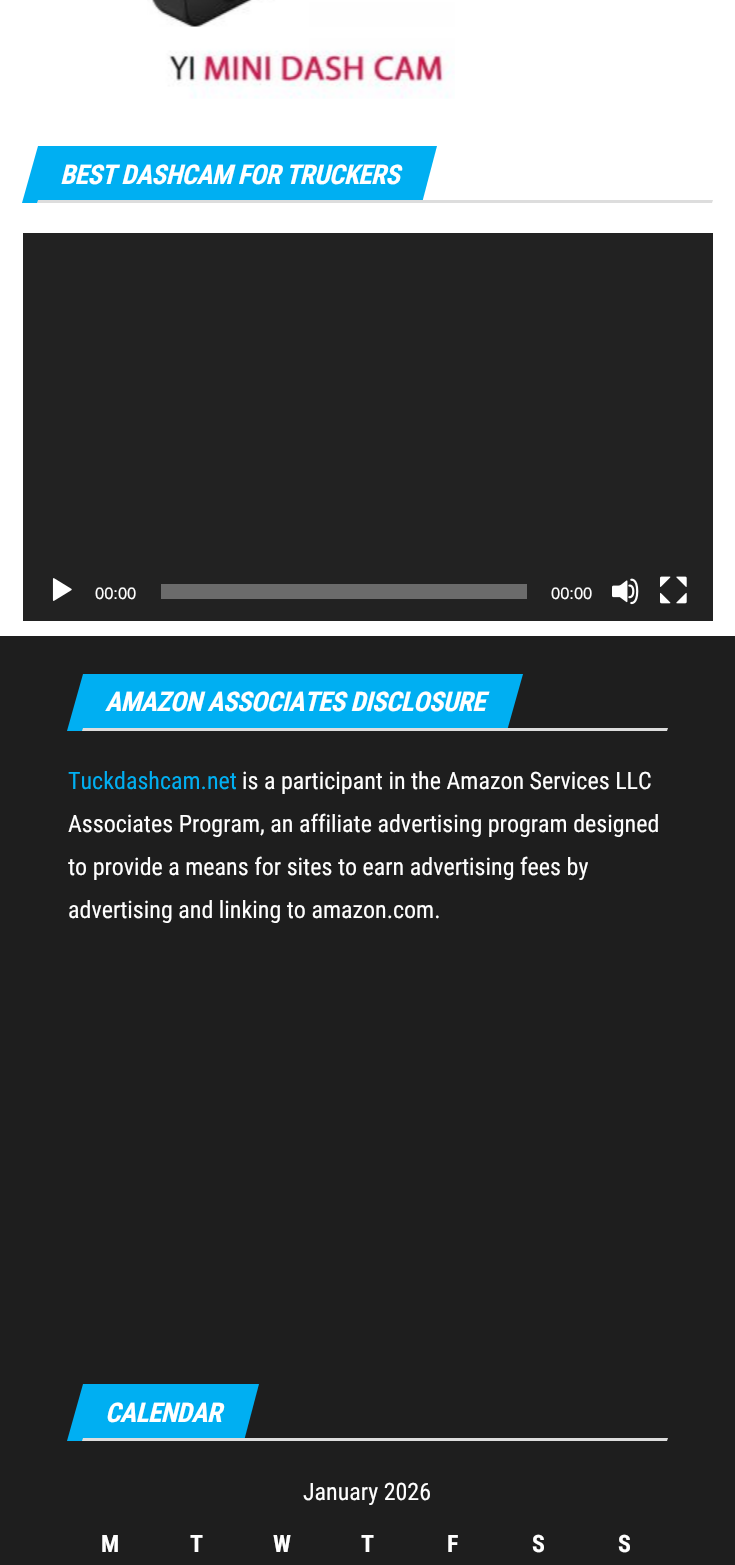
void draw(SkCanvas* canvas) {
	SkPaint paint;
	paint.setAntiAlias(true);
	auto spacedText = [&](const char* s, float x, float y, const SkFont& font, const SkPaint& ink, float letter, float word) {
		std::vector<SkGlyphID> glyphs(font.countText(s, strlen(s), SkTextEncoding::kUTF8));
		std::vector<float> xs(glyphs.size());
		font.textToGlyphs(s, strlen(s), SkTextEncoding::kUTF8, glyphs);
		font.getXPos(glyphs, xs, x);
		float extra = 0;
		for (size_t i = 0; i < glyphs.size(); i++) {
			xs[i] += extra;
			extra += letter + word * (glyphs[i] == font.unicharToGlyph(' '));
		}
		canvas->drawTextBlob(SkTextBlob::MakeFromPosHGlyphs(glyphs, xs, y, font), 0, 0, ink);
	};
	auto svgPath = [&](const char* data, bool evenOdd = false) {
		SkPath result = *SkParsePath::FromSVGString(data);
		if (evenOdd) result.setFillType(SkPathFillType::kEvenOdd);
		return result;
	};
	canvas->clear(0xffffffff);
	canvas->drawImageRect(SkImages::DeferredFromEncodedData(SkData::MakeFromFileName("img1.png")), SkRect::MakeXYWH(147, 0, 308, 99), SkSamplingOptions());
	paint.setColor(0xff00aff2);
	canvas->drawPath(svgPath("M38 146H437L422 203H22Z"), paint);
	SkFont f1(fontMgr->matchFamilyStyle("Roboto Condensed", SkFontStyle::BoldItalic()), 27);
	f1.setSubpixel(true);
	paint.setColor(0xffffffff);
	spacedText("BEST DASHCAM FOR TRUCKERS", 60, 184, f1, paint, -0.55, 0);
	paint.setColor(0xffdddddd);
	canvas->drawPath(svgPath("M38 200H713L712 203H37Z"), paint);
	paint.setColor(0xff222222);
	canvas->drawRect(SkRect::MakeXYWH(23, 233, 690, 388), paint);
	canvas->drawImageRect(SkImages::DeferredFromEncodedData(SkData::MakeFromFileName("img2.png")), SkRect::MakeXYWH(52, 578, 20, 23), SkSamplingOptions());
	SkFont f2(fontMgr->matchFamilyStyle("Liberation Sans", SkFontStyle::Normal()), 16.5);
	f2.setSubpixel(true);
	paint.setColor(0xffffffff);
	canvas->drawString("00:00", 95, 599, f2, paint);
	paint.setColor(0xff6b6b6b);
	canvas->drawRect(SkRect::MakeXYWH(161, 584, 366, 15), paint);
	paint.setColor(0xffffffff);
	canvas->drawString("00:00", 551, 599, f2, paint);
	canvas->drawImageRect(SkImages::DeferredFromEncodedData(SkData::MakeFromFileName("img3.png")), SkRect::MakeXYWH(612, 578, 27, 27), SkSamplingOptions());
	canvas->drawImageRect(SkImages::DeferredFromEncodedData(SkData::MakeFromFileName("img4.png")), SkRect::MakeXYWH(660, 576, 27, 28), SkSamplingOptions());
	paint.setColor(0xff1e1e1e);
	canvas->drawRect(SkRect::MakeXYWH(0, 636, 735, 929), paint);
	paint.setColor(0xff00aff2);
	canvas->drawPath(svgPath("M83 674H523L507 731H67Z"), paint);
	paint.setColor(0xffffffff);
	spacedText("AMAZON ASSOCIATES DISCLOSURE", 105, 711, f1, paint, -0.55, 0);
	paint.setColor(0xffdddddd);
	canvas->drawPath(svgPath("M83 728H668L667 731H82Z"), paint);
	SkFont f3(fontMgr->matchFamilyStyle("Roboto Condensed", SkFontStyle::Normal()), 24);
	f3.setSubpixel(true);
	paint.setColor(0xff00aff2);
	canvas->drawString("Tuckdashcam.net", 68, 789, f3, paint);
	paint.setColor(0xffffffff);
	canvas->drawString("is a participant in the Amazon Services LLC", 242, 789, f3, paint);
	canvas->drawString("Associates Program, an affiliate advertising program designed", 68, 832, f3, paint);
	canvas->drawString("to provide a means for sites to earn advertising fees by", 68, 875, f3, paint);
	canvas->drawString("advertising and linking to amazon.com.", 68, 918, f3, paint);
	paint.setColor(0xff00aff2);
	canvas->drawPath(svgPath("M83 1384H259L244 1441H67Z"), paint);
	paint.setColor(0xffffffff);
	spacedText("CALENDAR", 105, 1422, f1, paint, -0.55, 0);
	paint.setColor(0xffdddddd);
	canvas->drawPath(svgPath("M83 1438H668L667 1441H82Z"), paint);
	paint.setColor(0xffffffff);
	canvas->drawString("January 2026", 303, 1500, f3, paint);
	SkFont f4(fontMgr->matchFamilyStyle("Roboto Condensed", SkFontStyle::Bold()), 24);
	f4.setSubpixel(true);
	canvas->drawString("M", 101, 1552, f4, paint);
	canvas->drawString("T", 190, 1552, f4, paint);
	canvas->drawString("W", 273, 1552, f4, paint);
	canvas->drawString("T", 361, 1552, f4, paint);
	canvas->drawString("F", 447, 1552, f4, paint);
	canvas->drawString("S", 532, 1552, f4, paint);
	canvas->drawString("S", 618, 1552, f4, paint);
}
